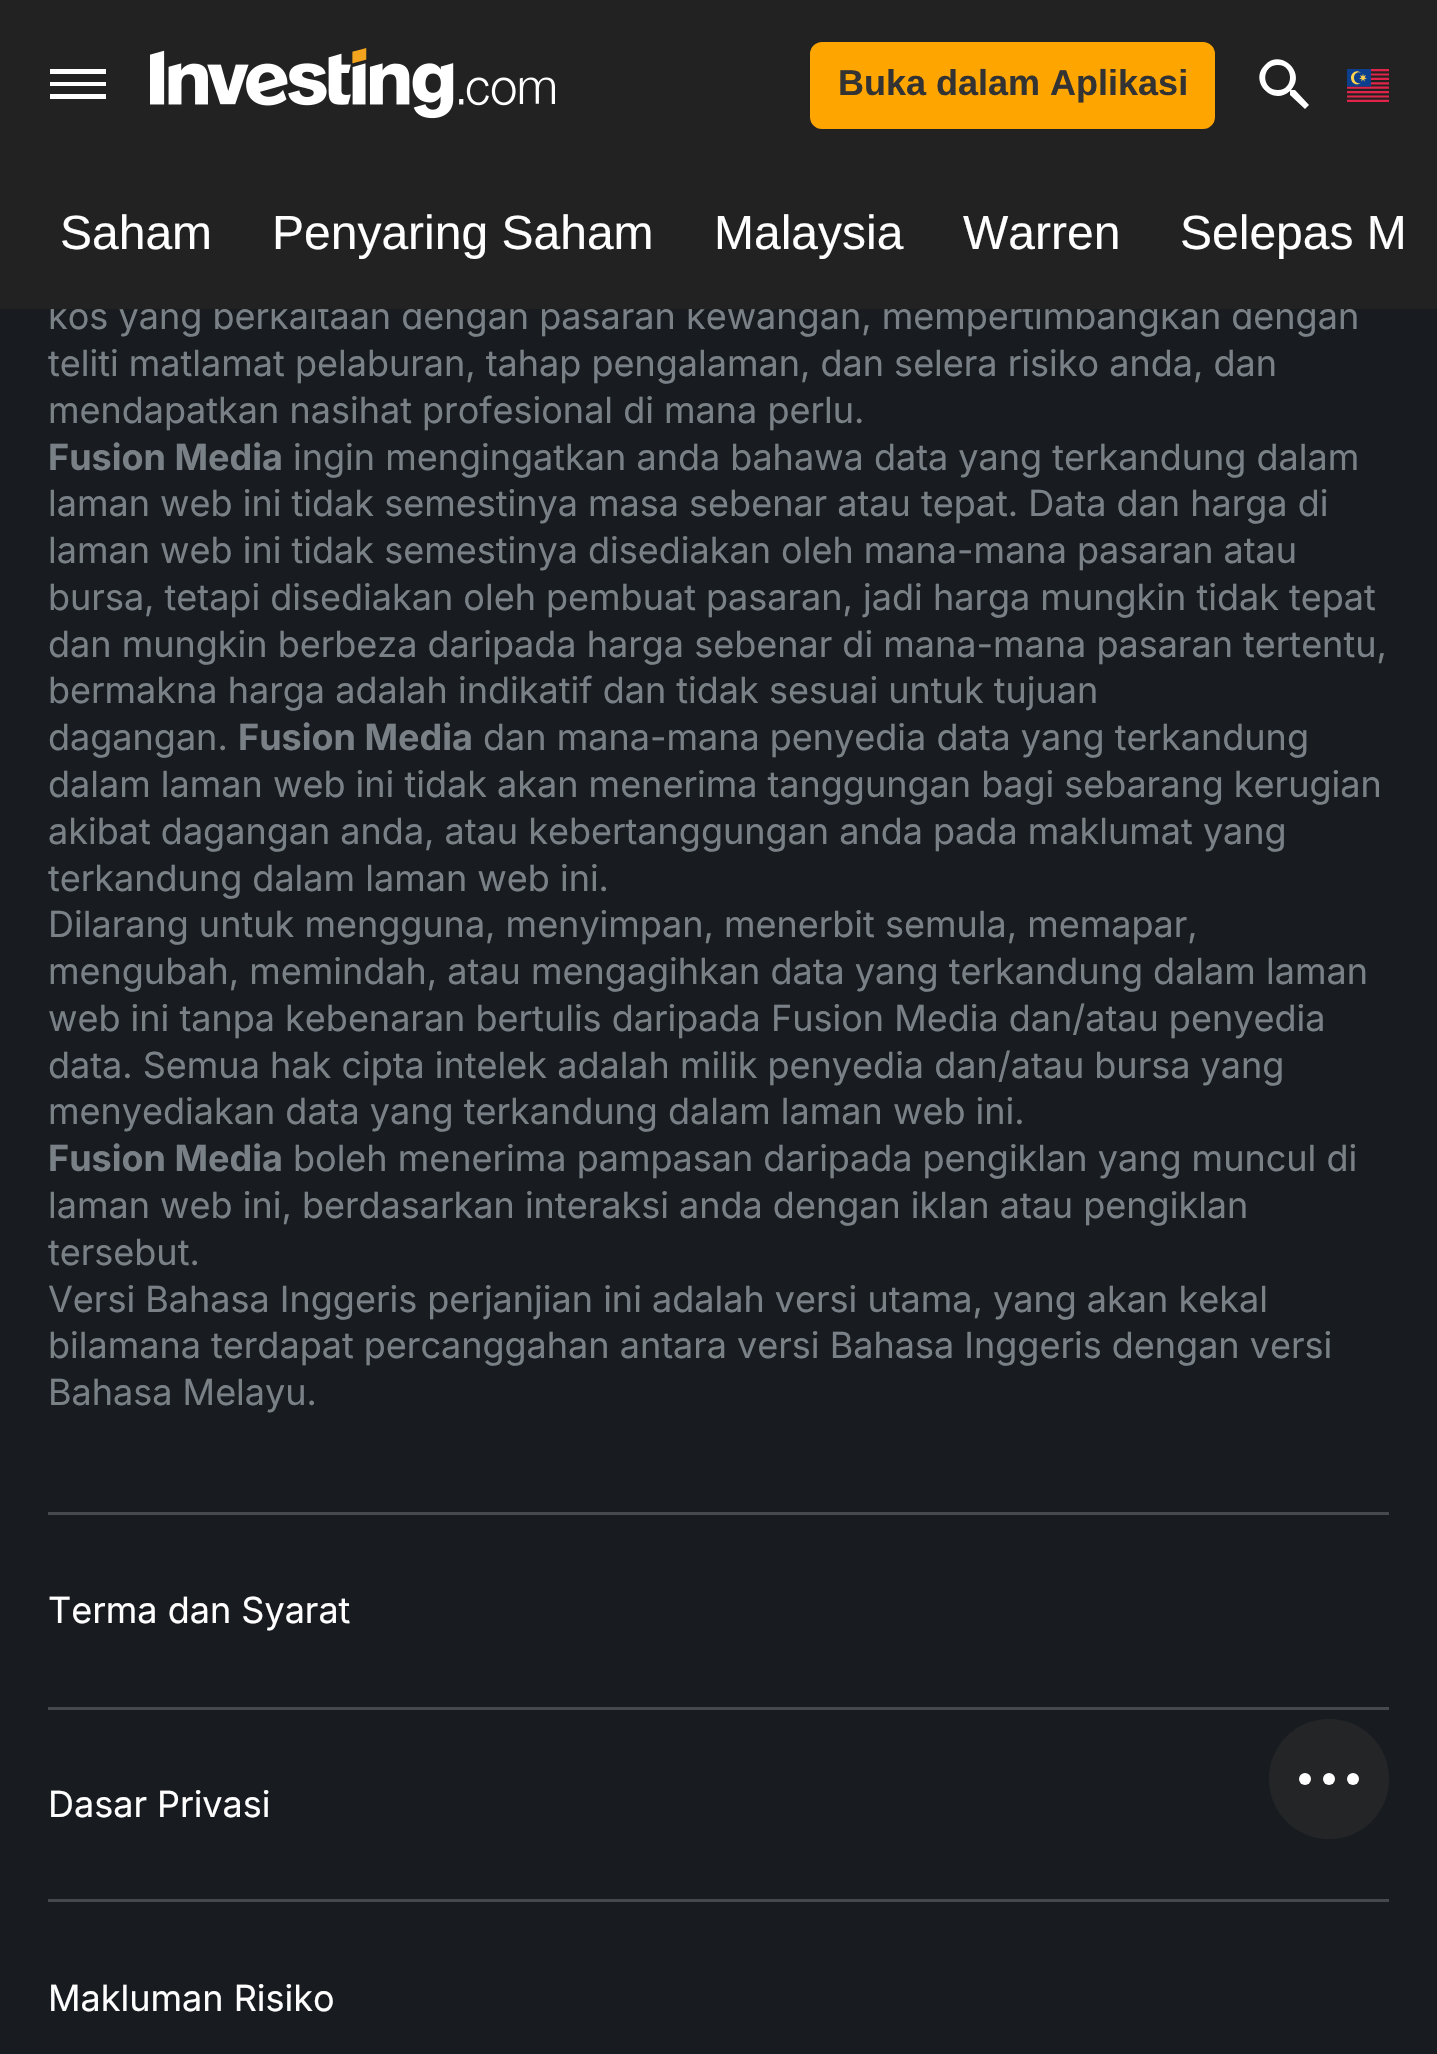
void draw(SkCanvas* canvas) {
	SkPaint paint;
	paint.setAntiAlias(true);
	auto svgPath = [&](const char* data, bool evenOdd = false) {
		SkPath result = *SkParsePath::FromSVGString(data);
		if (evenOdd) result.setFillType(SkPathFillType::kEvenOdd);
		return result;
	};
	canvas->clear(0xff181c21);
	SkFont f1(fontMgr->matchFamilyStyle("Inter", SkFontStyle::Normal()), 36);
	f1.setSubpixel(true);
	paint.setColor(0xff798187);
	canvas->drawString("kos yang berkaitaan dengan pasaran kewangan, mempertimbangkan dengan", 48, 329, f1, paint);
	paint.setColor(0xff222222);
	canvas->drawRect(SkRect::MakeXYWH(0, 0, 1437, 309), paint);
	paint.setColor(0xffffffff);
	canvas->drawPath(svgPath("M50 99H106V94H50ZM50 86H106V82H50ZM50 69V74H106V69Z", true), paint);
	canvas->drawImageRect(SkImages::DeferredFromEncodedData(SkData::MakeFromFileName("img1.png")), SkRect::MakeXYWH(150, 48, 405, 71), SkSamplingOptions());
	paint.setColor(0xffffa500);
	canvas->drawRoundRect(SkRect::MakeXYWH(811.5, 43.5, 402, 84), 10.5, 10.5, paint);
	paint.setStroke(true);
	paint.setStrokeWidth(3);
	canvas->drawRoundRect(SkRect::MakeXYWH(811.5, 43.5, 402, 84), 10.5, 10.5, paint);
	SkFont f2(fontMgr->matchFamilyStyle("Liberation Sans", SkFontStyle::Bold()), 36);
	f2.setSubpixel(true);
	paint.setStroke(false);
	paint.setColor(0xff333333);
	canvas->drawString("Buka dalam Aplikasi", 838, 95, f2, paint);
	paint.setColor(0xffffffff);
	canvas->drawPath(svgPath("M1295 90H1292H1291C1307 73 1281 48 1265 65C1248 81 1273 107 1290 91V92V95L1305 109L1309 105ZM1278 90C1261 90 1261 65 1278 65C1294 65 1294 90 1278 90Z"), paint);
	canvas->drawImageRect(SkImages::DeferredFromEncodedData(SkData::MakeFromFileName("img2.png")), SkRect::MakeXYWH(1347, 69, 42, 33), SkSamplingOptions());
	SkFont f3(fontMgr->matchFamilyStyle("Liberation Sans", SkFontStyle::Normal()), 48);
	f3.setSubpixel(true);
	canvas->drawString("Saham", 60, 249, f3, paint);
	canvas->drawString("Penyaring Saham", 272, 249, f3, paint);
	canvas->drawString("Malaysia", 714, 249, f3, paint);
	canvas->drawString("Warren", 963, 249, f3, paint);
	canvas->drawString("Selepas M", 1180, 249, f3, paint);
	paint.setColor(0xff46494d);
	canvas->drawRect(SkRect::MakeXYWH(48, 1512, 1341, 3), paint);
	paint.setColor(0xff798187);
	canvas->drawString("teliti matlamat pelaburan, tahap pengalaman, dan selera risiko anda, dan", 48, 376, f1, paint);
	canvas->drawString("mendapatkan nasihat profesional di mana perlu.", 48, 423, f1, paint);
	SkFont f4(fontMgr->matchFamilyStyle("Inter", SkFontStyle::Bold()), 36);
	f4.setSubpixel(true);
	canvas->drawString("Fusion Media", 48, 470, f4, paint);
	canvas->drawString("ingin mengingatkan anda bahawa data yang terkandung dalam", 293, 470, f1, paint);
	canvas->drawString("laman web ini tidak semestinya masa sebenar atau tepat. Data dan harga di", 48, 516, f1, paint);
	canvas->drawString("laman web ini tidak semestinya disediakan oleh mana-mana pasaran atau", 48, 563, f1, paint);
	canvas->drawString("bursa, tetapi disediakan oleh pembuat pasaran, jadi harga mungkin tidak tepat", 48, 610, f1, paint);
	canvas->drawString("dan mungkin berbeza daripada harga sebenar di mana-mana pasaran tertentu,", 48, 657, f1, paint);
	canvas->drawString("bermakna harga adalah indikatif dan tidak sesuai untuk tujuan", 48, 703, f1, paint);
	canvas->drawString("dagangan.", 48, 750, f1, paint);
	canvas->drawString("Fusion Media", 238, 750, f4, paint);
	canvas->drawString("dan mana-mana penyedia data yang terkandung", 483, 750, f1, paint);
	canvas->drawString("dalam laman web ini tidak akan menerima tanggungan bagi sebarang kerugian", 48, 797, f1, paint);
	canvas->drawString("akibat dagangan anda, atau kebertanggungan anda pada maklumat yang", 48, 844, f1, paint);
	canvas->drawString("terkandung dalam laman web ini.", 48, 891, f1, paint);
	canvas->drawString("Dilarang untuk mengguna, menyimpan, menerbit semula, memapar,", 48, 937, f1, paint);
	canvas->drawString("mengubah, memindah, atau mengagihkan data yang terkandung dalam laman", 48, 984, f1, paint);
	canvas->drawString("web ini tanpa kebenaran bertulis daripada Fusion Media dan/atau penyedia", 48, 1031, f1, paint);
	canvas->drawString("data. Semua hak cipta intelek adalah milik penyedia dan/atau bursa yang", 48, 1078, f1, paint);
	canvas->drawString("menyediakan data yang terkandung dalam laman web ini.", 48, 1124, f1, paint);
	canvas->drawString("Fusion Media", 48, 1171, f4, paint);
	canvas->drawString("boleh menerima pampasan daripada pengiklan yang muncul di", 293, 1171, f1, paint);
	canvas->drawString("laman web ini, berdasarkan interaksi anda dengan iklan atau pengiklan", 48, 1218, f1, paint);
	canvas->drawString("tersebut.", 48, 1265, f1, paint);
	canvas->drawString("Versi Bahasa Inggeris perjanjian ini adalah versi utama, yang akan kekal", 48, 1312, f1, paint);
	canvas->drawString("bilamana terdapat percanggahan antara versi Bahasa Inggeris dengan versi", 48, 1358, f1, paint);
	canvas->drawString("Bahasa Melayu.", 48, 1405, f1, paint);
	paint.setColor(0xff46494d);
	canvas->drawRect(SkRect::MakeXYWH(48, 1707, 1341, 3), paint);
	paint.setColor(0xffffffff);
	canvas->drawString("Terma dan Syarat", 48, 1623, f1, paint);
	paint.setColor(0xff46494d);
	canvas->drawRect(SkRect::MakeXYWH(48, 1899, 1341, 3), paint);
	paint.setColor(0xffffffff);
	canvas->drawString("Dasar Privasi", 48, 1817, f1, paint);
	canvas->drawString("Makluman Risiko", 48, 2011, f1, paint);
	paint.setColor(0xff232526);
	canvas->drawCircle(1329, 1779, 60, paint);
	paint.setColor(0xffffffff);
	canvas->drawCircle(1353, 1779, 6, paint);
	canvas->drawCircle(1305, 1779, 6, paint);
	canvas->drawCircle(1329, 1779, 6, paint);
}
